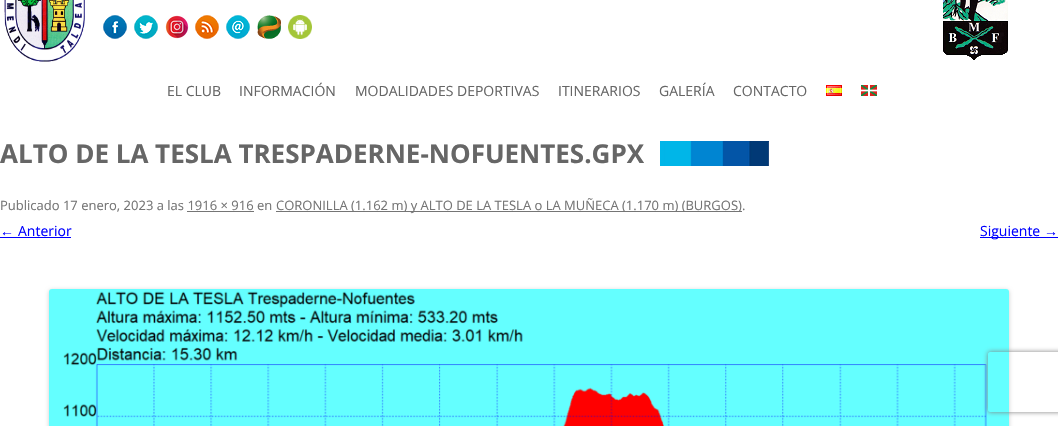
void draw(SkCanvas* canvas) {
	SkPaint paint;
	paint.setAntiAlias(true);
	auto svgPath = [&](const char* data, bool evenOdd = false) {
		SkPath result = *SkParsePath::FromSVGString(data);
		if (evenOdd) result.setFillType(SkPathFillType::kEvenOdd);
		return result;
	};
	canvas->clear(0xffffffff);
	canvas->drawImageRect(SkImages::DeferredFromEncodedData(SkData::MakeFromFileName("img1.png")), SkRect::MakeXYWH(4, 0, 81, 62), SkSamplingOptions());
	canvas->drawImageRect(SkImages::DeferredFromEncodedData(SkData::MakeFromFileName("img2.png")), SkRect::MakeXYWH(103, 15, 24, 24), SkSamplingOptions());
	canvas->drawImageRect(SkImages::DeferredFromEncodedData(SkData::MakeFromFileName("img3.png")), SkRect::MakeXYWH(134, 15, 24, 24), SkSamplingOptions());
	canvas->drawImageRect(SkImages::DeferredFromEncodedData(SkData::MakeFromFileName("img4.png")), SkRect::MakeXYWH(165, 15, 24, 24), SkSamplingOptions());
	canvas->drawImageRect(SkImages::DeferredFromEncodedData(SkData::MakeFromFileName("img5.png")), SkRect::MakeXYWH(195, 15, 24, 24), SkSamplingOptions());
	canvas->drawImageRect(SkImages::DeferredFromEncodedData(SkData::MakeFromFileName("img6.png")), SkRect::MakeXYWH(226, 15, 24, 24), SkSamplingOptions());
	canvas->drawImageRect(SkImages::DeferredFromEncodedData(SkData::MakeFromFileName("img7.png")), SkRect::MakeXYWH(257, 15, 24, 24), SkSamplingOptions());
	canvas->drawImageRect(SkImages::DeferredFromEncodedData(SkData::MakeFromFileName("img8.png")), SkRect::MakeXYWH(288, 15, 24, 24), SkSamplingOptions());
	canvas->drawImageRect(SkImages::DeferredFromEncodedData(SkData::MakeFromFileName("img9.png")), SkRect::MakeXYWH(943, 0, 65, 60), SkSamplingOptions());
	SkFont f1(fontMgr->matchFamilyStyle("Open Sans", SkFontStyle::Normal()), 14);
	f1.setSubpixel(true);
	paint.setColor(0xff666666);
	canvas->drawString("EL CLUB", 167, 96, f1, paint);
	canvas->drawString("INFORMACIÓN", 239, 96, f1, paint);
	canvas->drawString("MODALIDADES DEPORTIVAS", 355, 96, f1, paint);
	canvas->drawString("ITINERARIOS", 558, 96, f1, paint);
	canvas->drawString("GALERÍA", 659, 96, f1, paint);
	canvas->drawString("CONTACTO", 733, 96, f1, paint);
	canvas->drawImageRect(SkImages::DeferredFromEncodedData(SkData::MakeFromFileName("img10.png")), SkRect::MakeXYWH(826, 85, 16, 11), SkSamplingOptions());
	canvas->drawImageRect(SkImages::DeferredFromEncodedData(SkData::MakeFromFileName("img11.png")), SkRect::MakeXYWH(861, 85, 16, 11), SkSamplingOptions());
	canvas->drawImageRect(SkImages::DeferredFromEncodedData(SkData::MakeFromFileName("img12.png")), SkRect::MakeXYWH(660, 141, 109, 25), SkSamplingOptions());
	SkFont f2(fontMgr->matchFamilyStyle("Open Sans", SkFontStyle::Bold()), 26);
	f2.setSubpixel(true);
	canvas->drawString("ALTO DE LA TESLA TRESPADERNE-NOFUENTES.GPX", 0, 163, f2, paint);
	SkFont f3(fontMgr->matchFamilyStyle("Open Sans", SkFontStyle::Normal()), 13);
	f3.setSubpixel(true);
	paint.setColor(0xff757575);
	canvas->drawString("Publicado 17 enero, 2023 a las 1916 × 916 en", 0, 210, f3, paint);
	canvas->drawRect(SkRect::MakeXYWH(276, 211, 466, 1), paint);
	canvas->drawString("CORONILLA (1.162 m) y ALTO DE LA TESLA o LA MUÑECA (1.170 m) (BURGOS).", 276, 210, f3, paint);
	canvas->drawRect(SkRect::MakeXYWH(187, 211, 67, 1), paint);
	SkFont f4(fontMgr->matchFamilyStyle("Liberation Sans", SkFontStyle::Normal()), 14);
	f4.setSubpixel(true);
	paint.setColor(0xff0000ff);
	canvas->drawString("←", 0, 236, f4, paint);
	canvas->drawRect(SkRect::MakeXYWH(0, 237, 71, 1), paint);
	canvas->drawString("Anterior", 18, 236, f1, paint);
	canvas->drawRect(SkRect::MakeXYWH(980, 237, 78, 1), paint);
	canvas->drawString("Siguiente", 980, 236, f1, paint);
	canvas->drawString("→", 1044, 236, f4, paint);
	paint.setColor(0x33000000);
	paint.setMaskFilter(SkMaskFilter::MakeBlur(kNormal_SkBlurStyle, 2));
	canvas->drawRoundRect(SkRect::MakeXYWH(49, 290, 960, 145), 3, 3, paint);
	paint.setMaskFilter(nullptr);
	canvas->drawImageRect(SkImages::DeferredFromEncodedData(SkData::MakeFromFileName("img13.png")), SkRect::MakeXYWH(49, 289, 960, 137), SkSamplingOptions());
	canvas->save();
	canvas->clipPath(svgPath("M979 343H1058V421H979ZM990 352H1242C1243 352 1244 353 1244 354V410C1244 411 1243 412 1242 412H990C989 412 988 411 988 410V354C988 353 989 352 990 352Z", true), true);
	paint.setColor(0xff808080);
	paint.setMaskFilter(SkMaskFilter::MakeBlur(kNormal_SkBlurStyle, 2.5));
	canvas->drawRoundRect(SkRect::MakeXYWH(988, 352, 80, 60), 2, 2, paint);
	paint.setMaskFilter(nullptr);
	canvas->restore();
}
